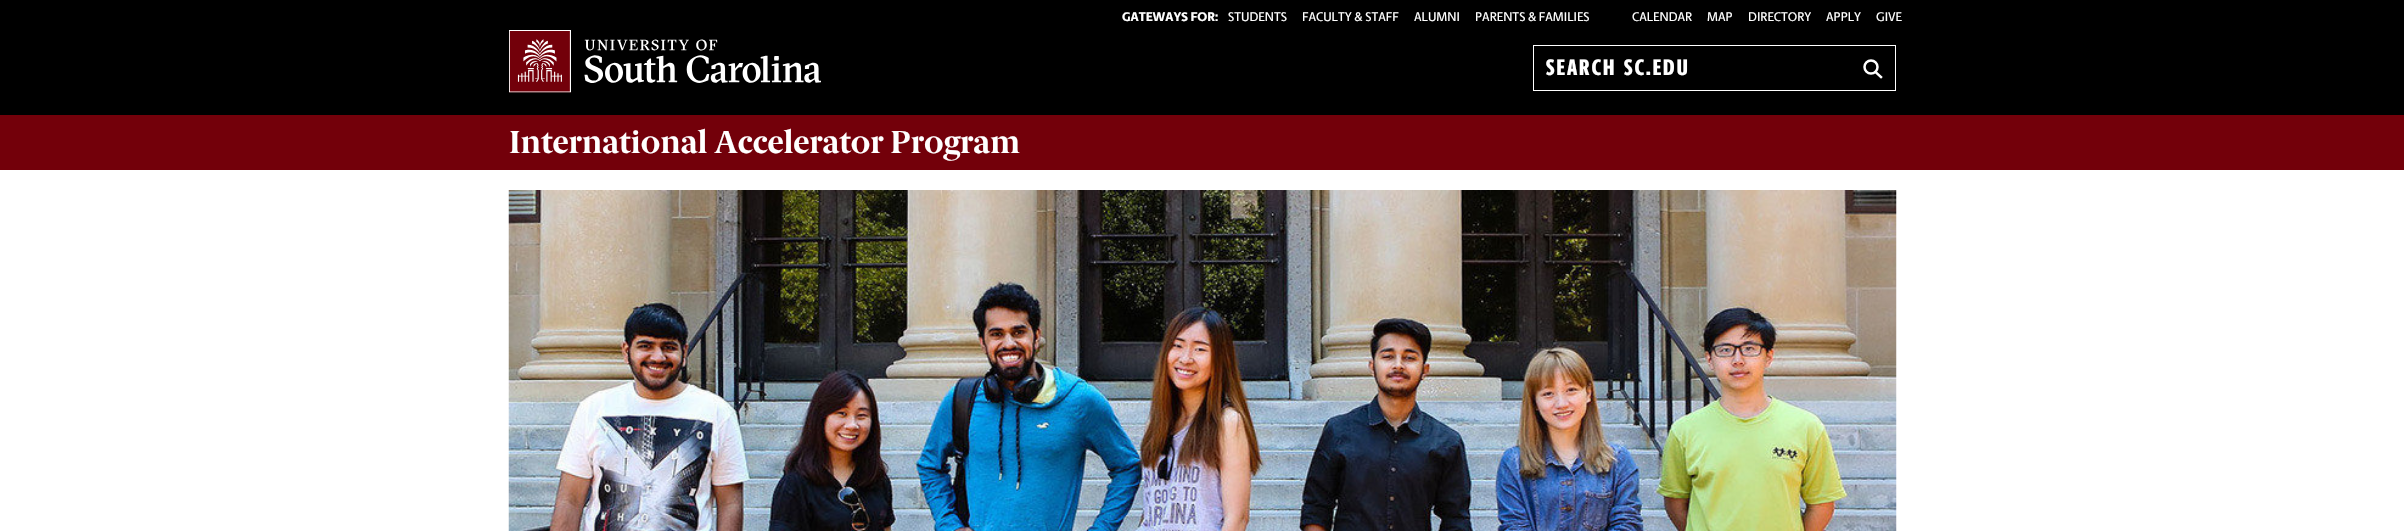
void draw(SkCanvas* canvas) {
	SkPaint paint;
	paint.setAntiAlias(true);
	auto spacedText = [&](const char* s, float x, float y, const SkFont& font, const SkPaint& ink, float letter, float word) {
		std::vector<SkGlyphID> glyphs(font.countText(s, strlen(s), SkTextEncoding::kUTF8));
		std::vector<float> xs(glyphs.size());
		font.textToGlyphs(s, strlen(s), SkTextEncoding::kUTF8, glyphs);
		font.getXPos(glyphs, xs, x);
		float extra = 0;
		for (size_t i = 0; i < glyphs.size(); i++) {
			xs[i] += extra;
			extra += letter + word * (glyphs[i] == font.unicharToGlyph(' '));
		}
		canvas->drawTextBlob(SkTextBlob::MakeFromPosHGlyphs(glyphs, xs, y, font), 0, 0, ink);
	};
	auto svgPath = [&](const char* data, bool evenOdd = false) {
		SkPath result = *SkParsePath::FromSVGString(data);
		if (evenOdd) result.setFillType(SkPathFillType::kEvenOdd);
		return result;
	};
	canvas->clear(0xffffffff);
	paint.setColor(0xff000000);
	canvas->drawRect(SkRect::MakeXYWH(0, 0, 490, 115), paint);
	canvas->drawRect(SkRect::MakeXYWH(490, 0, 1914, 115), paint);
	canvas->drawImageRect(SkImages::DeferredFromEncodedData(SkData::MakeFromFileName("img1.png")), SkRect::MakeXYWH(509, 30, 312, 63), SkSamplingOptions());
	SkFont f1(fontMgr->matchFamilyStyle("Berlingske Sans", SkFontStyle(800, SkFontStyle::kNormal_Width, SkFontStyle::kUpright_Slant)), 12.5);
	f1.setSubpixel(true);
	paint.setColor(0xffffffff);
	canvas->drawString("GATEWAYS FOR:", 1122, 21, f1, paint);
	SkFont f2(fontMgr->matchFamilyStyle("Berlingske Sans", SkFontStyle(500, SkFontStyle::kNormal_Width, SkFontStyle::kUpright_Slant)), 12.5);
	f2.setSubpixel(true);
	canvas->drawString("STUDENTS", 1228, 21, f2, paint);
	canvas->drawString("FACULTY & STAFF", 1302, 21, f2, paint);
	canvas->drawString("ALUMNI", 1414, 21, f2, paint);
	canvas->drawString("PARENTS & FAMILIES", 1475, 21, f2, paint);
	canvas->drawString("CALENDAR", 1632, 21, f2, paint);
	canvas->drawString("MAP", 1707, 21, f2, paint);
	canvas->drawString("DIRECTORY", 1748, 21, f2, paint);
	canvas->drawString("APPLY", 1826, 21, f2, paint);
	canvas->drawString("GIVE", 1876, 21, f2, paint);
	paint.setStroke(true);
	paint.setStrokeWidth(1);
	canvas->drawRect(SkRect::MakeXYWH(1533.5, 45.5, 362, 45), paint);
	SkFont f3(fontMgr->matchFamilyStyle("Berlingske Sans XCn", SkFontStyle(800, SkFontStyle::kNormal_Width, SkFontStyle::kUpright_Slant)), 22.5);
	f3.setSubpixel(true);
	paint.setStroke(false);
	spacedText("SEARCH", 1546, 75, f3, paint, 2, 0);
	spacedText("SC.EDU", 1624, 75, f3, paint, 2, 0);
	paint.setStroke(true);
	paint.setStrokeWidth(2.5);
	paint.setStrokeCap(SkPaint::kSquare_Cap);
	canvas->drawPath(svgPath("M1881 77L1875.5 72"), paint);
	paint.setStrokeCap(SkPaint::kButt_Cap);
	canvas->drawCircle(1871, 67, 6.5, paint);
	paint.setStroke(false);
	paint.setColor(0xff73000a);
	canvas->drawRect(SkRect::MakeXYWH(0, 115, 2404, 55), paint);
	SkFont f4(fontMgr->matchFamilyStyle("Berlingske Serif", SkFontStyle::Bold()), 32);
	f4.setSubpixel(true);
	paint.setColor(0xffffffff);
	canvas->drawString("International Accelerator Program", 509, 153, f4, paint);
	canvas->drawImageRect(SkImages::DeferredFromEncodedData(SkData::MakeFromFileName("img2.png")), SkRect::MakeXYWH(508, 190, 1389, 341), SkSamplingOptions());
}
